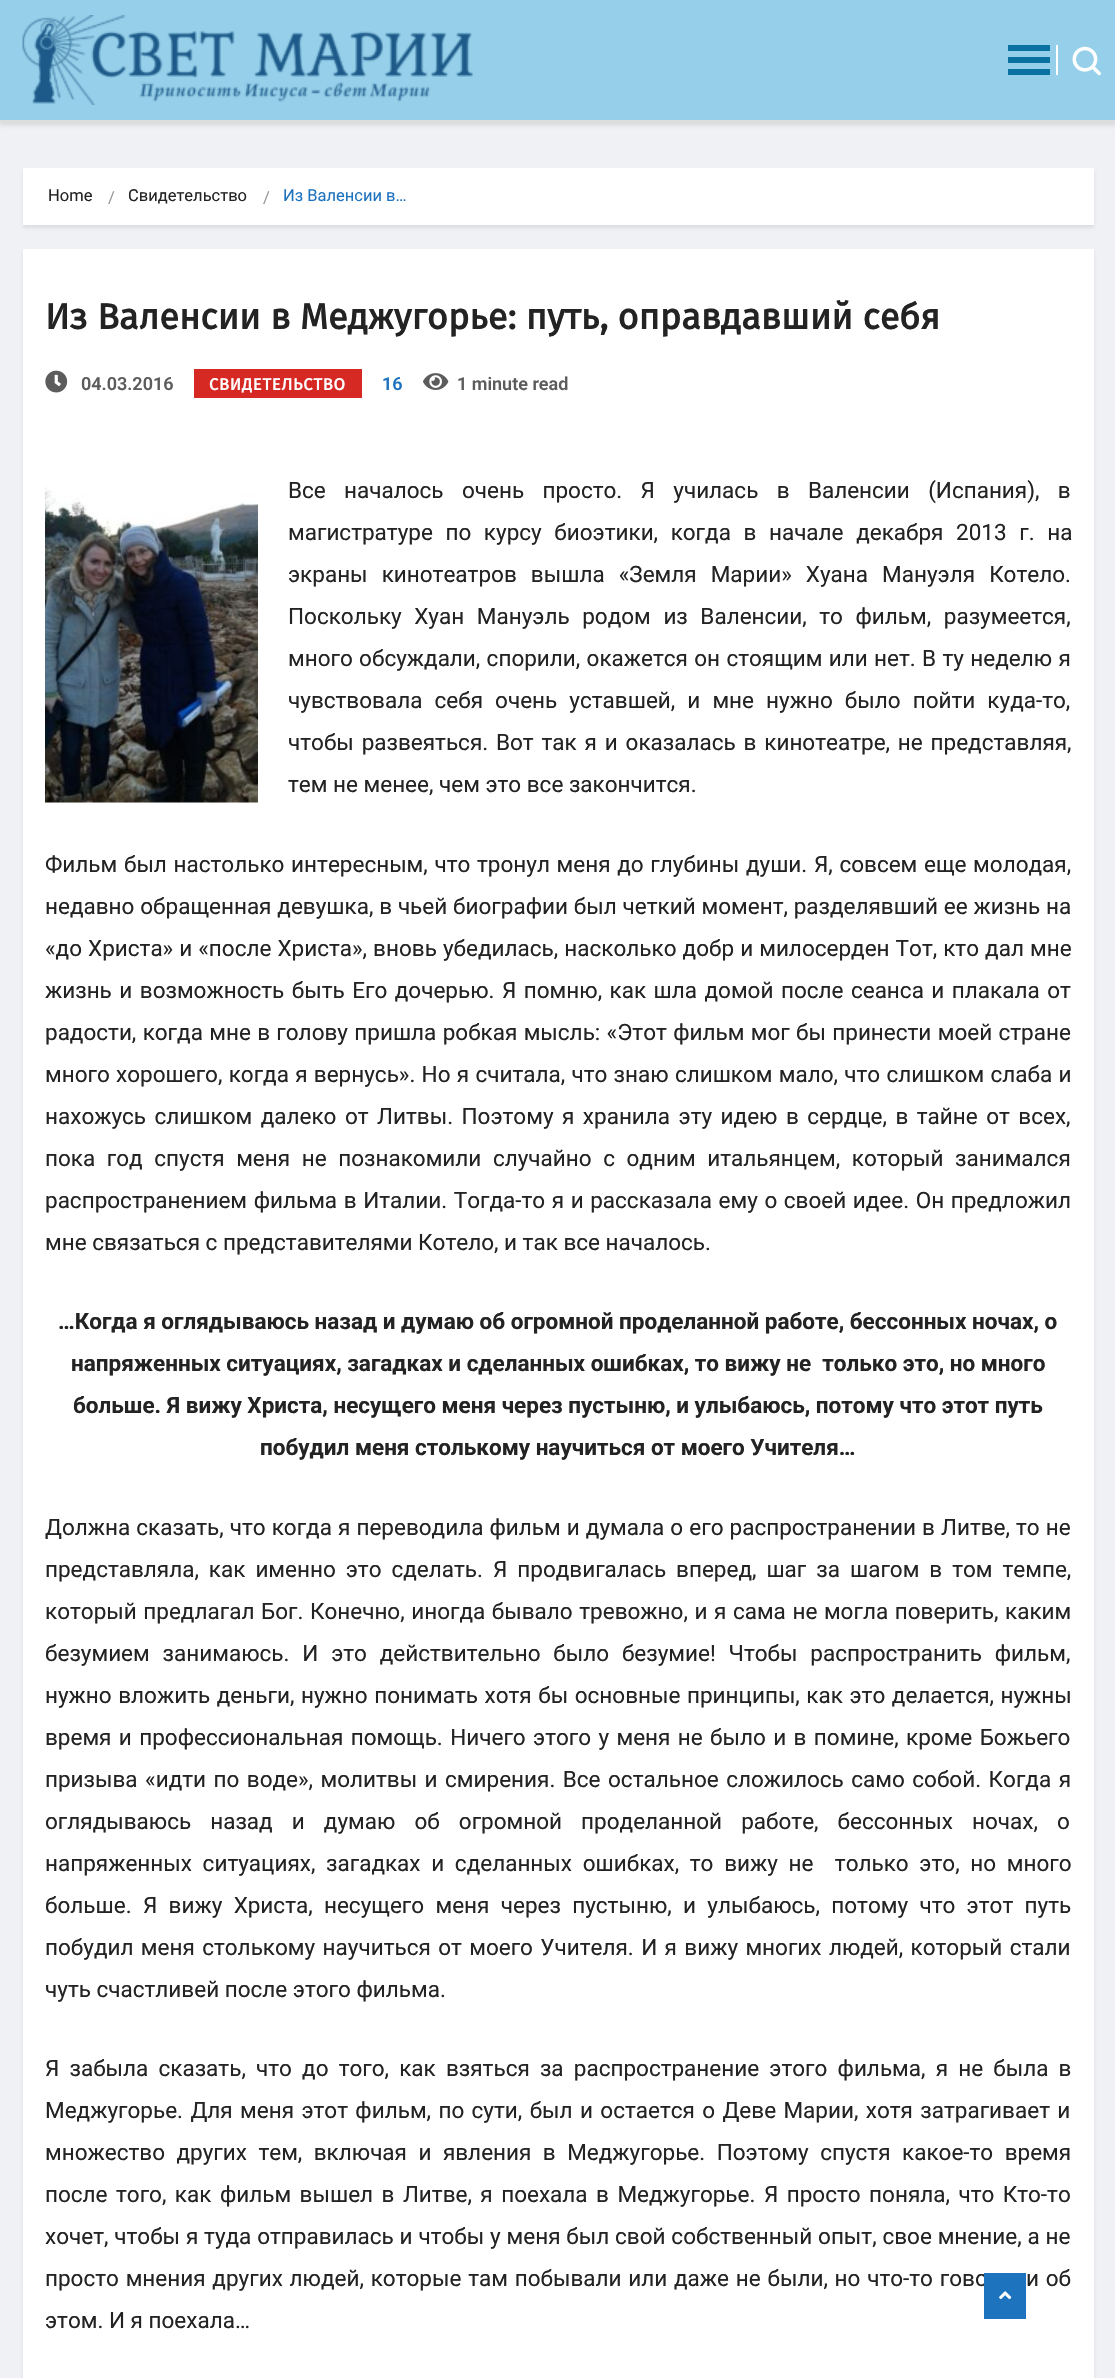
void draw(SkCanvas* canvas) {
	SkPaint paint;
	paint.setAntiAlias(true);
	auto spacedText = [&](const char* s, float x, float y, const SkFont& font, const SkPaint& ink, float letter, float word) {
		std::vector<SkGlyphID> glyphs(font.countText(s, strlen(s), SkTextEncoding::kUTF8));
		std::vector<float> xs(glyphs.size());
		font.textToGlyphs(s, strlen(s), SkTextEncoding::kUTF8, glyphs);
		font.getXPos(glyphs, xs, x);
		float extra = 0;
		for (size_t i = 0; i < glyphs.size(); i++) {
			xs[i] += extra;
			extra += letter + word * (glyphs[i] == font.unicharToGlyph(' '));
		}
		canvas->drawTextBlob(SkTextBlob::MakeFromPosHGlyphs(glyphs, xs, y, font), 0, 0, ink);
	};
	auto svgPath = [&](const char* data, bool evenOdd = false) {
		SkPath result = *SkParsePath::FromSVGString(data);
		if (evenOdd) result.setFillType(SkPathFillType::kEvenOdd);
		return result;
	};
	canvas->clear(0xfff0f1f4);
	paint.setColor(0x14000000);
	paint.setMaskFilter(SkMaskFilter::MakeBlur(kNormal_SkBlurStyle, 1.5));
	canvas->drawRect(SkRect::MakeXYWH(0, 3, 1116, 123), paint);
	paint.setMaskFilter(nullptr);
	paint.setColor(0xff95cfe9);
	canvas->drawRect(SkRect::MakeXYWH(0, 0, 1115, 120), paint);
	paint.setColor(0xffdddddd);
	canvas->drawRect(SkRect::MakeXYWH(0, 120, 1115, 3), paint);
	canvas->drawImageRect(SkImages::DeferredFromEncodedData(SkData::MakeFromFileName("img1.png")), SkRect::MakeXYWH(22, 15, 451, 90), SkSamplingOptions());
	paint.setColor(0xff0b71a0);
	canvas->drawPath(svgPath("M1008 75H1050V69H1008ZM1008 45V51H1050V45ZM1008 63H1050V57H1008Z"), paint);
	paint.setColor(0xffffffff);
	canvas->drawRect(SkRect::MakeXYWH(1056, 45, 2, 30), paint);
	canvas->drawImageRect(SkImages::DeferredFromEncodedData(SkData::MakeFromFileName("img2.png")), SkRect::MakeXYWH(1072, 46, 29, 30), SkSamplingOptions());
	paint.setColor(0x14000000);
	paint.setMaskFilter(SkMaskFilter::MakeBlur(kNormal_SkBlurStyle, 1.5));
	canvas->drawRect(SkRect::MakeXYWH(23, 171, 1071, 57), paint);
	paint.setMaskFilter(nullptr);
	paint.setColor(0xffffffff);
	canvas->drawRect(SkRect::MakeXYWH(23, 168, 1071, 57), paint);
	SkFont f1(fontMgr->matchFamilyStyle("Roboto", SkFontStyle::Normal()), 16.5);
	f1.setSubpixel(true);
	paint.setColor(0xff232323);
	canvas->drawString("Home", 48, 201, f1, paint);
	paint.setColor(0xff999999);
	canvas->drawString("/", 108, 203, f1, paint);
	paint.setColor(0xff232323);
	canvas->drawString("Cвидетельство", 128, 201, f1, paint);
	paint.setColor(0xff999999);
	canvas->drawString("/", 263, 203, f1, paint);
	paint.setColor(0xff1e73be);
	canvas->drawString("Из Валенсии в…", 283, 201, f1, paint);
	paint.setColor(0x14000000);
	paint.setMaskFilter(SkMaskFilter::MakeBlur(kNormal_SkBlurStyle, 1.5));
	canvas->drawRect(SkRect::MakeXYWH(23, 252, 1071, 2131), paint);
	paint.setMaskFilter(nullptr);
	paint.setColor(0xffffffff);
	canvas->drawRect(SkRect::MakeXYWH(23, 249, 1071, 2129), paint);
	SkFont f2(fontMgr->matchFamilyStyle("Fira Sans", SkFontStyle::Bold()), 36);
	f2.setSubpixel(true);
	paint.setColor(0xff232323);
	canvas->drawString("Из Валенсии в Меджугорье: путь, оправдавший себя", 45, 329, f2, paint);
	canvas->drawImageRect(SkImages::DeferredFromEncodedData(SkData::MakeFromFileName("img3.png")), SkRect::MakeXYWH(45, 370, 23, 23), SkSamplingOptions());
	SkFont f3(fontMgr->matchFamilyStyle("Roboto", SkFontStyle(600, SkFontStyle::kNormal_Width, SkFontStyle::kUpright_Slant)), 18);
	f3.setSubpixel(true);
	paint.setColor(0xff5c5c5c);
	canvas->drawString("04.03.2016", 81, 390, f3, paint);
	paint.setColor(0xffd72924);
	canvas->drawRect(SkRect::MakeXYWH(194, 369, 168, 29), paint);
	SkFont f4(fontMgr->matchFamilyStyle("Fira Sans", SkFontStyle::Bold()), 16.5);
	f4.setSubpixel(true);
	paint.setColor(0xffffffff);
	spacedText("CВИДЕТЕЛЬСТВО", 209, 390, f4, paint, 0.8, 0);
	paint.setColor(0xff1e73be);
	canvas->drawString("16", 382, 390, f3, paint);
	canvas->drawImageRect(SkImages::DeferredFromEncodedData(SkData::MakeFromFileName("img4.png")), SkRect::MakeXYWH(423, 373, 26, 17), SkSamplingOptions());
	paint.setColor(0xff5c5c5c);
	canvas->drawString("1 minute read", 457, 390, f3, paint);
	canvas->drawImageRect(SkImages::DeferredFromEncodedData(SkData::MakeFromFileName("img5.png")), SkRect::MakeXYWH(45, 487, 213, 316), SkSamplingOptions());
	SkFont f5(fontMgr->matchFamilyStyle("Roboto", SkFontStyle::Normal()), 22.5);
	f5.setSubpixel(true);
	paint.setColor(0xff232323);
	spacedText("Все началось очень просто. Я училась в Валенсии (Испания), в", 288, 498, f5, paint, 0, 12.75);
	spacedText("магистратуре по курсу биоэтики, когда в начале декабря 2013 г. на", 288, 540, f5, paint, 0, 7);
	spacedText("экраны кинотеатров вышла «Земля Марии» Хуана Мануэля Котело.", 288, 582, f5, paint, 0, 8.5);
	spacedText("Поскольку Хуан Мануэль родом из Валенсии, то фильм, разумеется,", 288, 624, f5, paint, 0, 7);
	spacedText("много обсуждали, спорили, окажется он стоящим или нет. В ту неделю я", 288, 666, f5, paint, 0, 0.75);
	spacedText("чувствовала себя очень уставшей, и мне нужно было пойти куда-то,", 288, 708, f5, paint, 0, 6.5);
	spacedText("чтобы развеяться. Вот так я и оказалась в кинотеатре, не представляя,", 288, 750, f5, paint, 0, 2.25);
	canvas->drawString("тем не менее, чем это все закончится.", 288, 792, f5, paint);
	spacedText("Фильм был настолько интересным, что тронул меня до глубины души. Я, совсем еще молодая,", 45, 872, f5, paint, 0, 1.1);
	spacedText("недавно обращенная девушка, в чьей биографии был четкий момент, разделявший ее жизнь на", 45, 914, f5, paint, 0, 0.25);
	spacedText("«до Христа» и «после Христа», вновь убедилась, насколько добр и милосерден Тот, кто дал мне", 45, 956, f5, paint, 0, 0.5);
	spacedText("жизнь и возможность быть Его дочерью. Я помню, как шла домой после сеанса и плакала от", 45, 998, f5, paint, 0, 1.9);
	spacedText("радости, когда мне в голову пришла робкая мысль: «Этот фильм мог бы принести моей стране", 45, 1040, f5, paint, 0, 0.75);
	spacedText("много хорошего, когда я вернусь». Но я считала, что знаю слишком мало, что слишком слаба и", 45, 1082, f5, paint, 0, 0.7);
	spacedText("нахожусь слишком далеко от Литвы. Поэтому я хранила эту идею в сердце, в тайне от всех,", 45, 1124, f5, paint, 0, 2.9);
	spacedText("пока год спустя меня не познакомили случайно с одним итальянцем, который занимался", 45, 1166, f5, paint, 0, 6);
	spacedText("распространением фильма в Италии. Тогда-то я и рассказала ему о своей идее. Он предложил", 45, 1208, f5, paint, 0, 1);
	canvas->drawString("мне связаться с представителями Котело, и так все началось.", 45, 1250, f5, paint);
	SkFont f6(fontMgr->matchFamilyStyle("Roboto", SkFontStyle::Bold()), 22.5);
	f6.setSubpixel(true);
	canvas->drawString("…Когда я оглядываюсь назад и думаю об огромной проделанной работе, бессонных ночах, о", 58, 1329, f6, paint);
	canvas->drawString("напряженных ситуациях, загадках и сделанных ошибках, то вижу не  только это, но много", 71, 1371, f6, paint);
	canvas->drawString("больше. Я вижу Христа, несущего меня через пустыню, и улыбаюсь, потому что этот путь", 73, 1413, f6, paint);
	canvas->drawString("побудил меня столькому научиться от моего Учителя…", 260, 1455, f6, paint);
	spacedText("Должна сказать, что когда я переводила фильм и думала о его распространении в Литве, то не", 45, 1535, f5, paint, 0, 0.5);
	spacedText("представляла, как именно это сделать. Я продвигалась вперед, шаг за шагом в том темпе,", 45, 1577, f5, paint, 0, 4.4);
	spacedText("который предлагал Бог. Конечно, иногда бывало тревожно, и я сама не могла поверить, каким", 45, 1619, f5, paint, 0, 1);
	spacedText("безумием занимаюсь. И это действительно было безумие! Чтобы распространить фильм,", 45, 1661, f5, paint, 0, 7.25);
	spacedText("нужно вложить деньги, нужно понимать хотя бы основные принципы, как это делается, нужны", 45, 1703, f5, paint, 0, 1);
	spacedText("время и профессиональная помощь. Ничего этого у меня не было и в помине, кроме Божьего", 45, 1745, f5, paint, 0, 1.8);
	spacedText("призыва «идти по воде», молитвы и смирения. Все остальное сложилось само собой. Когда я", 45, 1787, f5, paint, 0, 1.9);
	spacedText("оглядываюсь назад и думаю об огромной проделанной работе, бессонных ночах, о", 45, 1829, f5, paint, 0, 13.5);
	spacedText("напряженных ситуациях, загадках и сделанных ошибках, то вижу не  только это, но много", 45, 1871, f5, paint, 0, 5.1);
	spacedText("больше. Я вижу Христа, несущего меня через пустыню, и улыбаюсь, потому что этот путь", 45, 1913, f5, paint, 0, 5.75);
	spacedText("побудил меня столькому научиться от моего Учителя. И я вижу многих людей, который стали", 45, 1955, f5, paint, 0, 1.8);
	canvas->drawString("чуть счастливей после этого фильма.", 45, 1997, f5, paint);
	spacedText("Я забыла сказать, что до того, как взяться за распространение этого фильма, я не была в", 45, 2076, f5, paint, 0, 4.6);
	spacedText("Меджугорье. Для меня этот фильм, по сути, был и остается о Деве Марии, хотя затрагивает и", 45, 2118, f5, paint, 0, 1.8);
	spacedText("множество других тем, включая и явления в Меджугорье. Поэтому спустя какое-то время", 45, 2160, f5, paint, 0, 5.9);
	spacedText("после того, как фильм вышел в Литве, я поехала в Меджугорье. Я просто поняла, что Кто-то", 45, 2202, f5, paint, 0, 2.9);
	spacedText("хочет, чтобы я туда отправилась и чтобы у меня был свой собственный опыт, свое мнение, а не", 45, 2244, f5, paint, 0, 0.25);
	spacedText("просто мнения других людей, которые там побывали или даже не были, но что-то гово", 45, 2286, f5, paint, 0, 1.2);
	spacedText("и об", 1026, 2286, f5, paint, 0, 1.2);
	canvas->drawString("этом. И я поехала…", 45, 2328, f5, paint);
	paint.setColor(0xff1e73be);
	canvas->drawRect(SkRect::MakeXYWH(984, 2273, 42, 46), paint);
	canvas->drawImageRect(SkImages::DeferredFromEncodedData(SkData::MakeFromFileName("img6.png")), SkRect::MakeXYWH(999, 2291, 13, 9), SkSamplingOptions());
}
